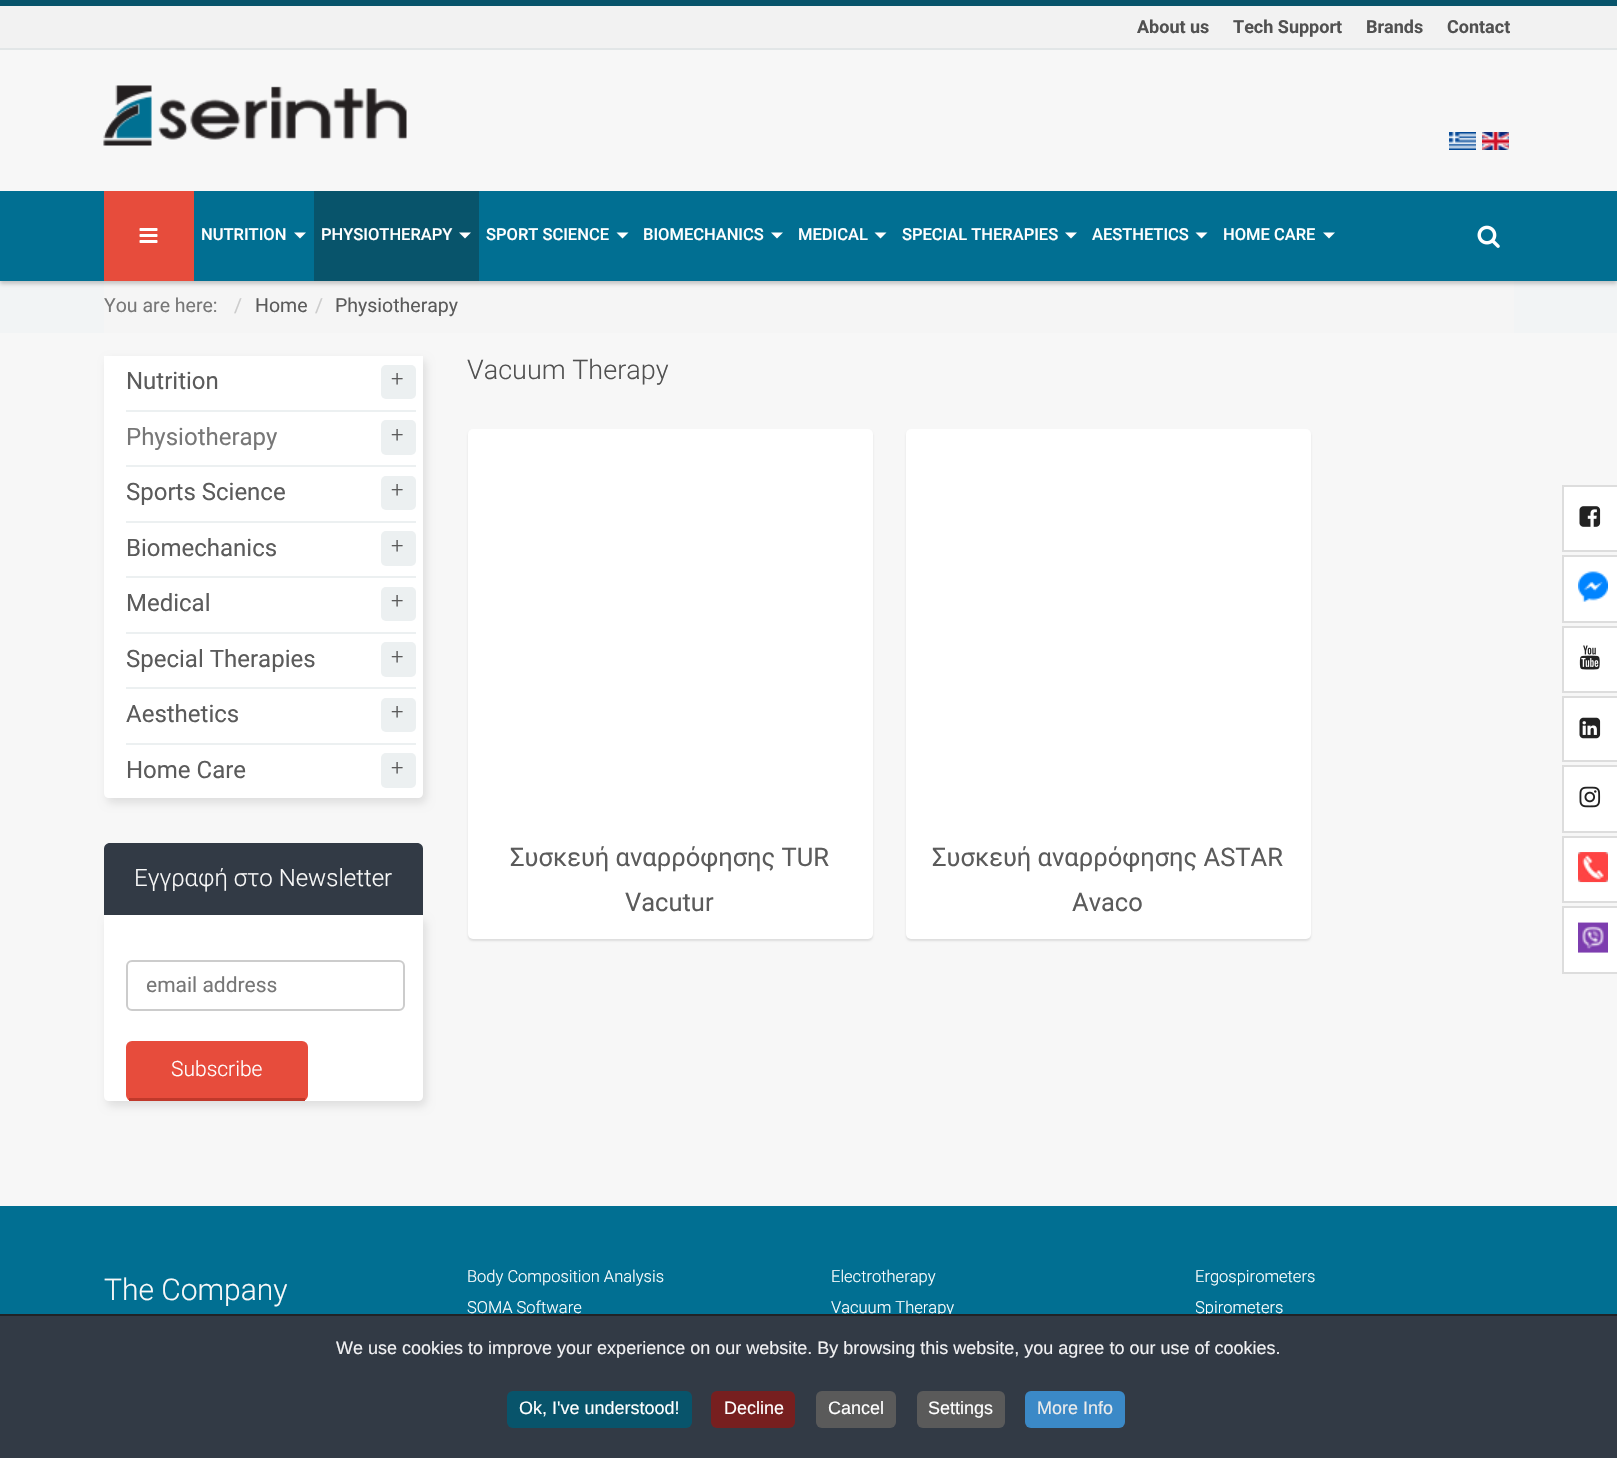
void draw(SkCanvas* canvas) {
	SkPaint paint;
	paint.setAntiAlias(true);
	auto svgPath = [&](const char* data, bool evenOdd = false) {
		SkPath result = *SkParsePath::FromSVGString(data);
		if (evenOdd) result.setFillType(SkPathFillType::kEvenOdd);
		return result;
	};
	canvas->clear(0xfff2f2f2);
	paint.setColor(0xff08546b);
	canvas->drawRect(SkRect::MakeXYWH(0, 0, 1617, 6), paint);
	paint.setColor(0xffe2e6e7);
	canvas->drawRect(SkRect::MakeXYWH(0, 48, 1617, 2), paint);
	SkFont f1(fontMgr->matchFamilyStyle("Roboto", SkFontStyle::Bold()), 18);
	f1.setSubpixel(true);
	paint.setColor(0xff515151);
	canvas->drawString("About us", 1137, 33, f1, paint);
	canvas->drawString("Tech Support", 1233, 33, f1, paint);
	canvas->drawString("Brands", 1366, 33, f1, paint);
	canvas->drawString("Contact", 1447, 33, f1, paint);
	paint.setColor(0xfff2f4f5);
	canvas->drawRect(SkRect::MakeXYWH(0, 281, 1617, 52), paint);
	paint.setColor(0xfff5f5f5);
	canvas->drawRect(SkRect::MakeXYWH(104, 281, 1410, 52), paint);
	paint.setColor(0x33000000);
	paint.setMaskFilter(SkMaskFilter::MakeBlur(kNormal_SkBlurStyle, 2));
	canvas->drawRect(SkRect::MakeXYWH(0, 194, 1617, 90), paint);
	paint.setMaskFilter(nullptr);
	paint.setColor(0xfff7f7f7);
	canvas->drawRect(SkRect::MakeXYWH(0, 50, 1617, 141), paint);
	canvas->drawImageRect(SkImages::DeferredFromEncodedData(SkData::MakeFromFileName("img1.png")), SkRect::MakeXYWH(103, 85, 304, 61), SkSamplingOptions());
	canvas->drawImageRect(SkImages::DeferredFromEncodedData(SkData::MakeFromFileName("img2.png")), SkRect::MakeXYWH(1449, 132, 27, 18), SkSamplingOptions());
	canvas->drawImageRect(SkImages::DeferredFromEncodedData(SkData::MakeFromFileName("img3.png")), SkRect::MakeXYWH(1482, 132, 27, 18), SkSamplingOptions());
	paint.setColor(0xff016f92);
	canvas->drawRect(SkRect::MakeXYWH(0, 191, 1617, 90), paint);
	paint.setColor(0xffe74c3c);
	canvas->drawRect(SkRect::MakeXYWH(104, 191, 90, 90), paint);
	canvas->drawImageRect(SkImages::DeferredFromEncodedData(SkData::MakeFromFileName("img4.png")), SkRect::MakeXYWH(139, 228, 19, 15), SkSamplingOptions());
	SkFont f2(fontMgr->matchFamilyStyle("Roboto", SkFontStyle(500, SkFontStyle::kNormal_Width, SkFontStyle::kUpright_Slant)), 16.5);
	f2.setSubpixel(true);
	paint.setColor(0xffffffff);
	canvas->drawString("NUTRITION", 201, 240, f2, paint);
	canvas->drawPath(svgPath("M294 232.5H306L300 238.5Z"), paint);
	paint.setColor(0xff08546b);
	canvas->drawRect(SkRect::MakeXYWH(314, 191, 165, 90), paint);
	paint.setColor(0xffffffff);
	canvas->drawString("PHYSIOTHERAPY", 321, 240, f2, paint);
	canvas->drawPath(svgPath("M459 232.5H471L465 238.5Z"), paint);
	canvas->drawString("SPORT SCIENCE", 486, 240, f2, paint);
	canvas->drawPath(svgPath("M616.5 232.5H628.5L622.5 238.5Z"), paint);
	canvas->drawString("BIOMECHANICS", 643, 240, f2, paint);
	canvas->drawPath(svgPath("M771 232.5H783L777 238.5Z"), paint);
	canvas->drawString("MEDICAL", 798, 240, f2, paint);
	canvas->drawPath(svgPath("M874.5 232.5H886.5L880.5 238.5Z"), paint);
	canvas->drawString("SPECIAL THERAPIES", 902, 240, f2, paint);
	canvas->drawPath(svgPath("M1065 232.5H1077L1071 238.5Z"), paint);
	canvas->drawString("AESTHETICS", 1092, 240, f2, paint);
	canvas->drawPath(svgPath("M1195.5 232.5H1207.5L1201.5 238.5Z"), paint);
	canvas->drawString("HOME CARE", 1223, 240, f2, paint);
	canvas->drawPath(svgPath("M1323 232.5H1335L1329 238.5Z"), paint);
	canvas->drawImageRect(SkImages::DeferredFromEncodedData(SkData::MakeFromFileName("img5.png")), SkRect::MakeXYWH(1477, 225, 23, 23), SkSamplingOptions());
	SkFont f3(fontMgr->matchFamilyStyle("Roboto", SkFontStyle::Normal()), 19.5);
	f3.setSubpixel(true);
	paint.setColor(0xff777777);
	canvas->drawString("You are here:", 104, 312, f3, paint);
	paint.setColor(0xffcccccc);
	canvas->drawString("/", 234, 312, f3, paint);
	paint.setColor(0xff5b5b5b);
	canvas->drawString("Home", 255, 312, f3, paint);
	paint.setColor(0xffcccccc);
	canvas->drawString("/", 315, 312, f3, paint);
	paint.setColor(0xff5b5b5b);
	canvas->drawString("Physiotherapy", 335, 312, f3, paint);
	paint.setColor(0xfff7f7f7);
	canvas->drawRect(SkRect::MakeXYWH(0, 333, 1617, 873), paint);
	paint.setColor(0x1a000000);
	paint.setMaskFilter(SkMaskFilter::MakeBlur(kNormal_SkBlurStyle, 4));
	canvas->drawRoundRect(SkRect::MakeXYWH(107, 360, 319, 443), 5, 5, paint);
	paint.setMaskFilter(nullptr);
	paint.setColor(0xffffffff);
	canvas->drawPath(svgPath("M104 356H423V793C423 796 421 798 418 798H109C106 798 104 796 104 793Z"), paint);
	SkFont f4(fontMgr->matchFamilyStyle("Roboto", SkFontStyle::Normal()), 24);
	f4.setSubpixel(true);
	paint.setColor(0xff5b5b5b);
	canvas->drawString("Nutrition", 126, 389, f4, paint);
	paint.setColor(0xffecf0f1);
	canvas->drawRoundRect(SkRect::MakeXYWH(381, 365, 35, 34), 5, 5, paint);
	SkFont f5(fontMgr->matchFamilyStyle("Roboto", SkFontStyle(300, SkFontStyle::kNormal_Width, SkFontStyle::kUpright_Slant)), 22);
	f5.setSubpixel(true);
	paint.setColor(0xff5b5b5b);
	canvas->drawString("+", 391, 386, f5, paint);
	paint.setColor(0xffecf0f1);
	canvas->drawRect(SkRect::MakeXYWH(126, 410, 290, 2), paint);
	paint.setColor(0xff777777);
	canvas->drawString("Physiotherapy", 126, 445, f4, paint);
	paint.setColor(0xffecf0f1);
	canvas->drawRoundRect(SkRect::MakeXYWH(381, 420, 35, 35), 5, 5, paint);
	paint.setColor(0xff5b5b5b);
	canvas->drawString("+", 391, 442, f5, paint);
	paint.setColor(0xffecf0f1);
	canvas->drawRect(SkRect::MakeXYWH(126, 465, 290, 2), paint);
	paint.setColor(0xff5b5b5b);
	canvas->drawString("Sports Science", 126, 500, f4, paint);
	paint.setColor(0xffecf0f1);
	canvas->drawRoundRect(SkRect::MakeXYWH(381, 476, 35, 34), 5, 5, paint);
	paint.setColor(0xff5b5b5b);
	canvas->drawString("+", 391, 497, f5, paint);
	paint.setColor(0xffecf0f1);
	canvas->drawRect(SkRect::MakeXYWH(126, 521, 290, 2), paint);
	paint.setColor(0xff5b5b5b);
	canvas->drawString("Biomechanics", 126, 556, f4, paint);
	paint.setColor(0xffecf0f1);
	canvas->drawRoundRect(SkRect::MakeXYWH(381, 531, 35, 35), 5, 5, paint);
	paint.setColor(0xff5b5b5b);
	canvas->drawString("+", 391, 553, f5, paint);
	paint.setColor(0xffecf0f1);
	canvas->drawRect(SkRect::MakeXYWH(126, 576, 290, 2), paint);
	paint.setColor(0xff5b5b5b);
	canvas->drawString("Medical", 126, 611, f4, paint);
	paint.setColor(0xffecf0f1);
	canvas->drawRoundRect(SkRect::MakeXYWH(381, 587, 35, 34), 5, 5, paint);
	paint.setColor(0xff5b5b5b);
	canvas->drawString("+", 391, 608, f5, paint);
	paint.setColor(0xffecf0f1);
	canvas->drawRect(SkRect::MakeXYWH(126, 632, 290, 2), paint);
	paint.setColor(0xff5b5b5b);
	canvas->drawString("Special Therapies", 126, 667, f4, paint);
	paint.setColor(0xffecf0f1);
	canvas->drawRoundRect(SkRect::MakeXYWH(381, 642, 35, 35), 5, 5, paint);
	paint.setColor(0xff5b5b5b);
	canvas->drawString("+", 391, 664, f5, paint);
	paint.setColor(0xffecf0f1);
	canvas->drawRect(SkRect::MakeXYWH(126, 687, 290, 2), paint);
	paint.setColor(0xff5b5b5b);
	canvas->drawString("Aesthetics", 126, 722, f4, paint);
	paint.setColor(0xffecf0f1);
	canvas->drawRoundRect(SkRect::MakeXYWH(381, 698, 35, 34), 5, 5, paint);
	paint.setColor(0xff5b5b5b);
	canvas->drawString("+", 391, 719, f5, paint);
	paint.setColor(0xffecf0f1);
	canvas->drawRect(SkRect::MakeXYWH(126, 743, 290, 2), paint);
	paint.setColor(0xff5b5b5b);
	canvas->drawString("Home Care", 126, 778, f4, paint);
	paint.setColor(0xffecf0f1);
	canvas->drawRoundRect(SkRect::MakeXYWH(381, 753, 35, 35), 5, 5, paint);
	paint.setColor(0xff5b5b5b);
	canvas->drawString("+", 391, 775, f5, paint);
	paint.setColor(0xff323a45);
	canvas->drawPath(svgPath("M110 843H417C420.5 843 423 845.5 423 849V915H104V849C104 845.5 106.5 843 110 843Z"), paint);
	SkFont f6(fontMgr->matchFamilyStyle("Roboto", SkFontStyle(300, SkFontStyle::kNormal_Width, SkFontStyle::kUpright_Slant)), 24);
	f6.setSubpixel(true);
	paint.setColor(0xfff9f9f9);
	canvas->drawString("Εγγραφή στο Newsletter", 134, 886, f6, paint);
	paint.setColor(0x1a000000);
	paint.setMaskFilter(SkMaskFilter::MakeBlur(kNormal_SkBlurStyle, 4));
	canvas->drawRoundRect(SkRect::MakeXYWH(107, 920, 319, 186), 5, 5, paint);
	paint.setMaskFilter(nullptr);
	paint.setColor(0xffffffff);
	canvas->drawPath(svgPath("M104 915H423V1096C423 1099 421 1101 418 1101H109C106 1101 104 1099 104 1096Z"), paint);
	paint.setStroke(true);
	paint.setStrokeWidth(2);
	paint.setColor(0xffcccccc);
	canvas->drawRoundRect(SkRect::MakeXYWH(127, 961, 277, 49), 5, 5, paint);
	SkFont f7(fontMgr->matchFamilyStyle("Roboto", SkFontStyle::Normal()), 21);
	f7.setSubpixel(true);
	paint.setStroke(false);
	paint.setColor(0xff777777);
	canvas->drawString("email address", 146, 992, f7, paint);
	paint.setColor(0xffe74c3c);
	canvas->drawRoundRect(SkRect::MakeXYWH(126, 1041, 182, 60), 6, 6, paint);
	paint.setColor(0xffc0392b);
	canvas->drawRect(SkRect::MakeXYWH(129, 1098, 176, 3), paint);
	SkFont f8(fontMgr->matchFamilyStyle("Roboto", SkFontStyle(300, SkFontStyle::kNormal_Width, SkFontStyle::kUpright_Slant)), 21);
	f8.setSubpixel(true);
	paint.setColor(0xffffffff);
	canvas->drawString("Subscribe", 171, 1076, f8, paint);
	SkFont f9(fontMgr->matchFamilyStyle("Roboto", SkFontStyle(300, SkFontStyle::kNormal_Width, SkFontStyle::kUpright_Slant)), 27);
	f9.setSubpixel(true);
	paint.setColor(0xff515151);
	canvas->drawString("Vacuum Therapy", 467, 379, f9, paint);
	paint.setColor(0x1a000000);
	paint.setMaskFilter(SkMaskFilter::MakeBlur(kNormal_SkBlurStyle, 1));
	canvas->drawRoundRect(SkRect::MakeXYWH(468, 431, 405, 510), 5, 5, paint);
	paint.setMaskFilter(nullptr);
	paint.setColor(0xffffffff);
	canvas->drawRoundRect(SkRect::MakeXYWH(468, 429, 405, 510), 5, 5, paint);
	SkFont f10(fontMgr->matchFamilyStyle("Roboto", SkFontStyle::Normal()), 25.5);
	f10.setSubpixel(true);
	paint.setColor(0xff5b5b5b);
	canvas->drawString("Συσκευή αναρρόφησης TUR", 510, 866, f10, paint);
	canvas->drawString("Vacutur", 625, 911, f10, paint);
	paint.setColor(0x1a000000);
	paint.setMaskFilter(SkMaskFilter::MakeBlur(kNormal_SkBlurStyle, 1));
	canvas->drawRoundRect(SkRect::MakeXYWH(906, 431, 405, 510), 5, 5, paint);
	paint.setMaskFilter(nullptr);
	paint.setColor(0xffffffff);
	canvas->drawRoundRect(SkRect::MakeXYWH(906, 429, 405, 510), 5, 5, paint);
	paint.setColor(0xff5b5b5b);
	canvas->drawString("Συσκευή αναρρόφησης ASTAR", 932, 866, f10, paint);
	canvas->drawString("Avaco", 1072, 911, f10, paint);
	paint.setColor(0xffffffff);
	canvas->drawRect(SkRect::MakeXYWH(1563, 486, 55, 65), paint);
	paint.setStroke(true);
	paint.setColor(0xffdddddd);
	canvas->drawRect(SkRect::MakeXYWH(1563, 486, 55, 65), paint);
	canvas->drawImageRect(SkImages::DeferredFromEncodedData(SkData::MakeFromFileName("img6.png")), SkRect::MakeXYWH(1579, 506, 22, 21), SkSamplingOptions());
	paint.setStroke(false);
	paint.setColor(0xffffffff);
	canvas->drawRect(SkRect::MakeXYWH(1563, 556, 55, 66), paint);
	paint.setStroke(true);
	paint.setColor(0xffdddddd);
	canvas->drawRect(SkRect::MakeXYWH(1563, 556, 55, 66), paint);
	canvas->drawImageRect(SkImages::DeferredFromEncodedData(SkData::MakeFromFileName("img7.png")), SkRect::MakeXYWH(1578, 571, 30, 31), SkSamplingOptions());
	paint.setStroke(false);
	paint.setColor(0xffffffff);
	canvas->drawRect(SkRect::MakeXYWH(1563, 627, 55, 65), paint);
	paint.setStroke(true);
	paint.setColor(0xffdddddd);
	canvas->drawRect(SkRect::MakeXYWH(1563, 627, 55, 65), paint);
	canvas->drawImageRect(SkImages::DeferredFromEncodedData(SkData::MakeFromFileName("img8.png")), SkRect::MakeXYWH(1579, 645, 21, 25), SkSamplingOptions());
	paint.setStroke(false);
	paint.setColor(0xffffffff);
	canvas->drawRect(SkRect::MakeXYWH(1563, 697, 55, 64), paint);
	paint.setStroke(true);
	paint.setColor(0xffdddddd);
	canvas->drawRect(SkRect::MakeXYWH(1563, 697, 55, 64), paint);
	canvas->drawImageRect(SkImages::DeferredFromEncodedData(SkData::MakeFromFileName("img9.png")), SkRect::MakeXYWH(1579, 717, 22, 22), SkSamplingOptions());
	paint.setStroke(false);
	paint.setColor(0xffffffff);
	canvas->drawRect(SkRect::MakeXYWH(1563, 766, 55, 66), paint);
	paint.setStroke(true);
	paint.setColor(0xffdddddd);
	canvas->drawRect(SkRect::MakeXYWH(1563, 766, 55, 66), paint);
	canvas->drawImageRect(SkImages::DeferredFromEncodedData(SkData::MakeFromFileName("img10.png")), SkRect::MakeXYWH(1579, 786, 22, 22), SkSamplingOptions());
	paint.setStroke(false);
	paint.setColor(0xffffffff);
	canvas->drawRect(SkRect::MakeXYWH(1563, 837, 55, 65), paint);
	paint.setStroke(true);
	paint.setColor(0xffdddddd);
	canvas->drawRect(SkRect::MakeXYWH(1563, 837, 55, 65), paint);
	canvas->drawImageRect(SkImages::DeferredFromEncodedData(SkData::MakeFromFileName("img11.png")), SkRect::MakeXYWH(1578, 852, 30, 31), SkSamplingOptions());
	paint.setStroke(false);
	paint.setColor(0xffffffff);
	canvas->drawRect(SkRect::MakeXYWH(1563, 907, 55, 66), paint);
	paint.setStroke(true);
	paint.setColor(0xffdddddd);
	canvas->drawRect(SkRect::MakeXYWH(1563, 907, 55, 66), paint);
	canvas->drawImageRect(SkImages::DeferredFromEncodedData(SkData::MakeFromFileName("img12.png")), SkRect::MakeXYWH(1578, 922, 30, 31), SkSamplingOptions());
	paint.setStroke(false);
	paint.setColor(0xff016f92);
	canvas->drawRect(SkRect::MakeXYWH(0, 1206, 1617, 108), paint);
	SkFont f11(fontMgr->matchFamilyStyle("Roboto", SkFontStyle(300, SkFontStyle::kNormal_Width, SkFontStyle::kUpright_Slant)), 30);
	f11.setSubpixel(true);
	paint.setColor(0xfff9f9f9);
	canvas->drawString("The Company", 104, 1300, f11, paint);
	SkFont f12(fontMgr->matchFamilyStyle("Roboto", SkFontStyle(300, SkFontStyle::kNormal_Width, SkFontStyle::kUpright_Slant)), 16.5);
	f12.setSubpixel(true);
	paint.setColor(0xffffffff);
	canvas->drawString("Body Composition Analysis", 467, 1282, f12, paint);
	canvas->drawString("SOMA Software", 467, 1313, f12, paint);
	canvas->drawString("Electrotherapy", 831, 1282, f12, paint);
	canvas->drawString("Vacuum Therapy", 831, 1313, f12, paint);
	canvas->drawString("Ergospirometers", 1195, 1282, f12, paint);
	canvas->save();
	canvas->clipRect(SkRect::MakeXYWH(1196, 1293, 318, 32));
	canvas->drawString("Spirometers", 1195, 1313, f12, paint);
	canvas->restore();
	paint.setColor(0xff323a45);
	canvas->drawRect(SkRect::MakeXYWH(0, 1316, 1617, 142), paint);
	paint.setColor(0xff202226);
	canvas->drawRect(SkRect::MakeXYWH(0, 1314, 1617, 2), paint);
	SkFont f13(fontMgr->matchFamilyStyle("Liberation Sans", SkFontStyle::Normal()), 18);
	f13.setSubpixel(true);
	paint.setColor(0xfff1f1f3);
	canvas->drawString("We use cookies to improve your experience on our website. By browsing this website, you agree to our use of cookies.", 336, 1354, f13, paint);
	paint.setColor(0xff08546b);
	canvas->drawRoundRect(SkRect::MakeXYWH(507, 1391, 185, 37), 6, 6, paint);
	paint.setColor(0xffffffff);
	canvas->drawString("Ok, I've understood!", 519, 1414, f13, paint);
	paint.setColor(0xff771f1f);
	canvas->drawRoundRect(SkRect::MakeXYWH(711, 1391, 84, 37), 6, 6, paint);
	paint.setColor(0xffffffff);
	canvas->drawString("Decline", 724, 1414, f13, paint);
	paint.setColor(0xff5a5a5a);
	canvas->drawRoundRect(SkRect::MakeXYWH(816, 1391, 80, 37), 6, 6, paint);
	paint.setColor(0xffffffff);
	canvas->drawString("Cancel", 828, 1414, f13, paint);
	paint.setColor(0xff5a5a5a);
	canvas->drawRoundRect(SkRect::MakeXYWH(917, 1391, 88, 37), 6, 6, paint);
	paint.setColor(0xffffffff);
	canvas->drawString("Settings", 928, 1414, f13, paint);
	paint.setColor(0xff3b89c7);
	canvas->drawRoundRect(SkRect::MakeXYWH(1025, 1391, 100, 37), 6, 6, paint);
	paint.setColor(0xffebebeb);
	canvas->drawString("More Info", 1037, 1414, f13, paint);
}
